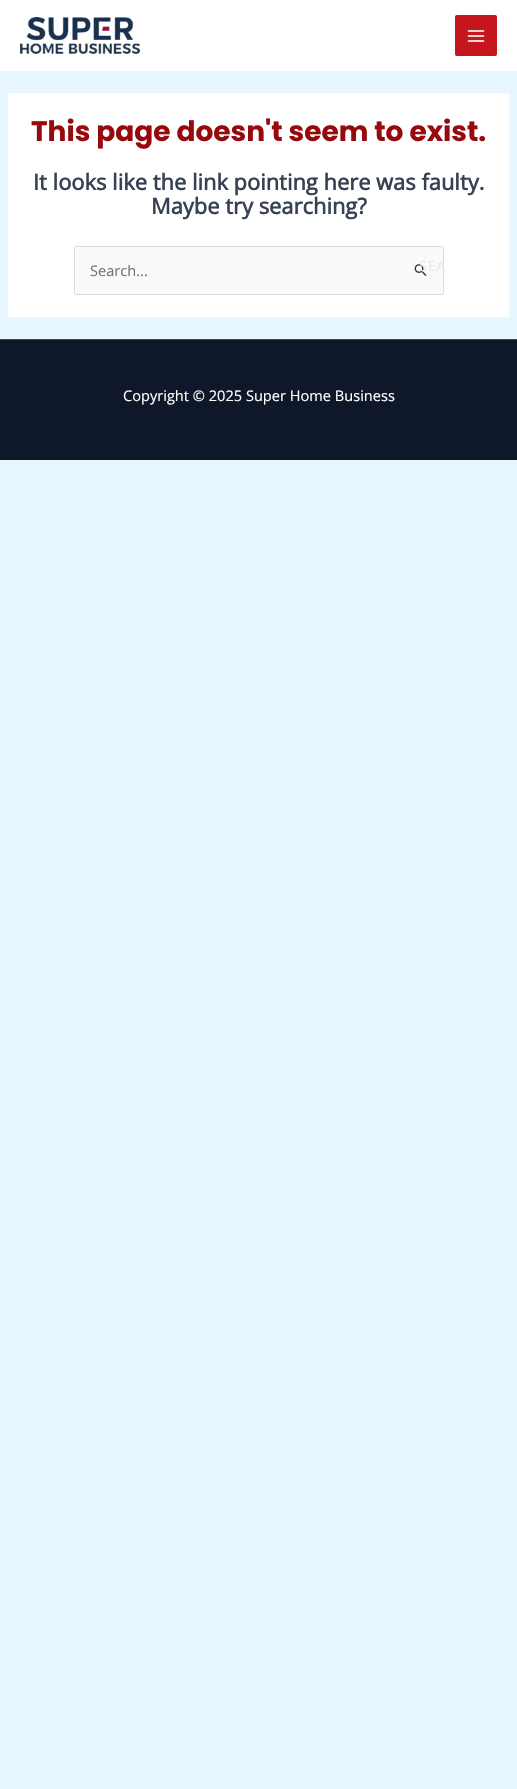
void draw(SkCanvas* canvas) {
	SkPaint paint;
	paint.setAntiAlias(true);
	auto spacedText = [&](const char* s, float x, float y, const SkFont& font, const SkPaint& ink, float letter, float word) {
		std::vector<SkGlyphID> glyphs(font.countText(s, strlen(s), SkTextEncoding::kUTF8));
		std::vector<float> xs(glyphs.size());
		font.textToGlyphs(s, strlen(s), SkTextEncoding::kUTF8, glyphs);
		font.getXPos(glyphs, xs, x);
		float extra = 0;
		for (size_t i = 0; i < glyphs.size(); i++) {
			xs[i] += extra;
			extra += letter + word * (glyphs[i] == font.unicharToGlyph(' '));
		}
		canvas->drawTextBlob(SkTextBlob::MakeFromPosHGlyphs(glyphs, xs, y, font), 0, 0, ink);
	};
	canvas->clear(0xffe7f6ff);
	paint.setColor(0xffffffff);
	canvas->drawRect(SkRect::MakeXYWH(0, 0, 517, 71), paint);
	canvas->drawImageRect(SkImages::DeferredFromEncodedData(SkData::MakeFromFileName("img1.png")), SkRect::MakeXYWH(20, 17, 120, 37), SkSamplingOptions());
	paint.setColor(0xffc5161e);
	canvas->drawRoundRect(SkRect::MakeXYWH(455, 15, 42, 41), 2, 2, paint);
	canvas->drawImageRect(SkImages::DeferredFromEncodedData(SkData::MakeFromFileName("img2.png")), SkRect::MakeXYWH(467, 30, 18, 12), SkSamplingOptions());
	paint.setColor(0xffffffff);
	canvas->drawRect(SkRect::MakeXYWH(8, 93, 501, 224), paint);
	SkFont f1(fontMgr->matchFamilyStyle("Poppins", SkFontStyle::Bold()), 28);
	f1.setSubpixel(true);
	paint.setColor(0xff98090d);
	canvas->drawString("This page doesn't seem to exist.", 31, 141, f1, paint);
	SkFont f2(fontMgr->matchFamilyStyle("Open Sans", SkFontStyle::Bold()), 21.9);
	f2.setSubpixel(true);
	paint.setColor(0xff364151);
	canvas->drawString("It looks like the link pointing here was faulty.", 33, 190, f2, paint);
	canvas->drawString("Maybe try searching?", 151, 214, f2, paint);
	paint.setColor(0xfffafafa);
	canvas->drawRoundRect(SkRect::MakeXYWH(74.5, 246.5, 369, 48), 1.5, 1.5, paint);
	paint.setStroke(true);
	paint.setStrokeWidth(1);
	paint.setColor(0xffdddddd);
	canvas->drawRoundRect(SkRect::MakeXYWH(74.5, 246.5, 369, 48), 1.5, 1.5, paint);
	SkFont f3(fontMgr->matchFamilyStyle("Open Sans", SkFontStyle::Normal()), 14.6);
	f3.setSubpixel(true);
	paint.setStroke(false);
	paint.setColor(0xff757575);
	canvas->drawString("Search...", 90, 276, f3, paint);
	canvas->drawImageRect(SkImages::DeferredFromEncodedData(SkData::MakeFromFileName("img3.png")), SkRect::MakeXYWH(414, 264, 13, 12), SkSamplingOptions());
	SkFont f4(fontMgr->matchFamilyStyle("Open Sans", SkFontStyle::Normal()), 14);
	f4.setSubpixel(true);
	paint.setColor(0xffe9e9e9);
	spacedText("SEA", 419, 271, f4, paint, 1, 0);
	paint.setColor(0xff0f172a);
	canvas->drawRect(SkRect::MakeXYWH(0, 340, 517, 120), paint);
	paint.setColor(0xff3f4469);
	canvas->drawRect(SkRect::MakeXYWH(0, 339, 517, 1), paint);
	paint.setColor(0xffffffff);
	canvas->drawString("Copyright © 2025 Super Home Business", 123, 401, f3, paint);
}
